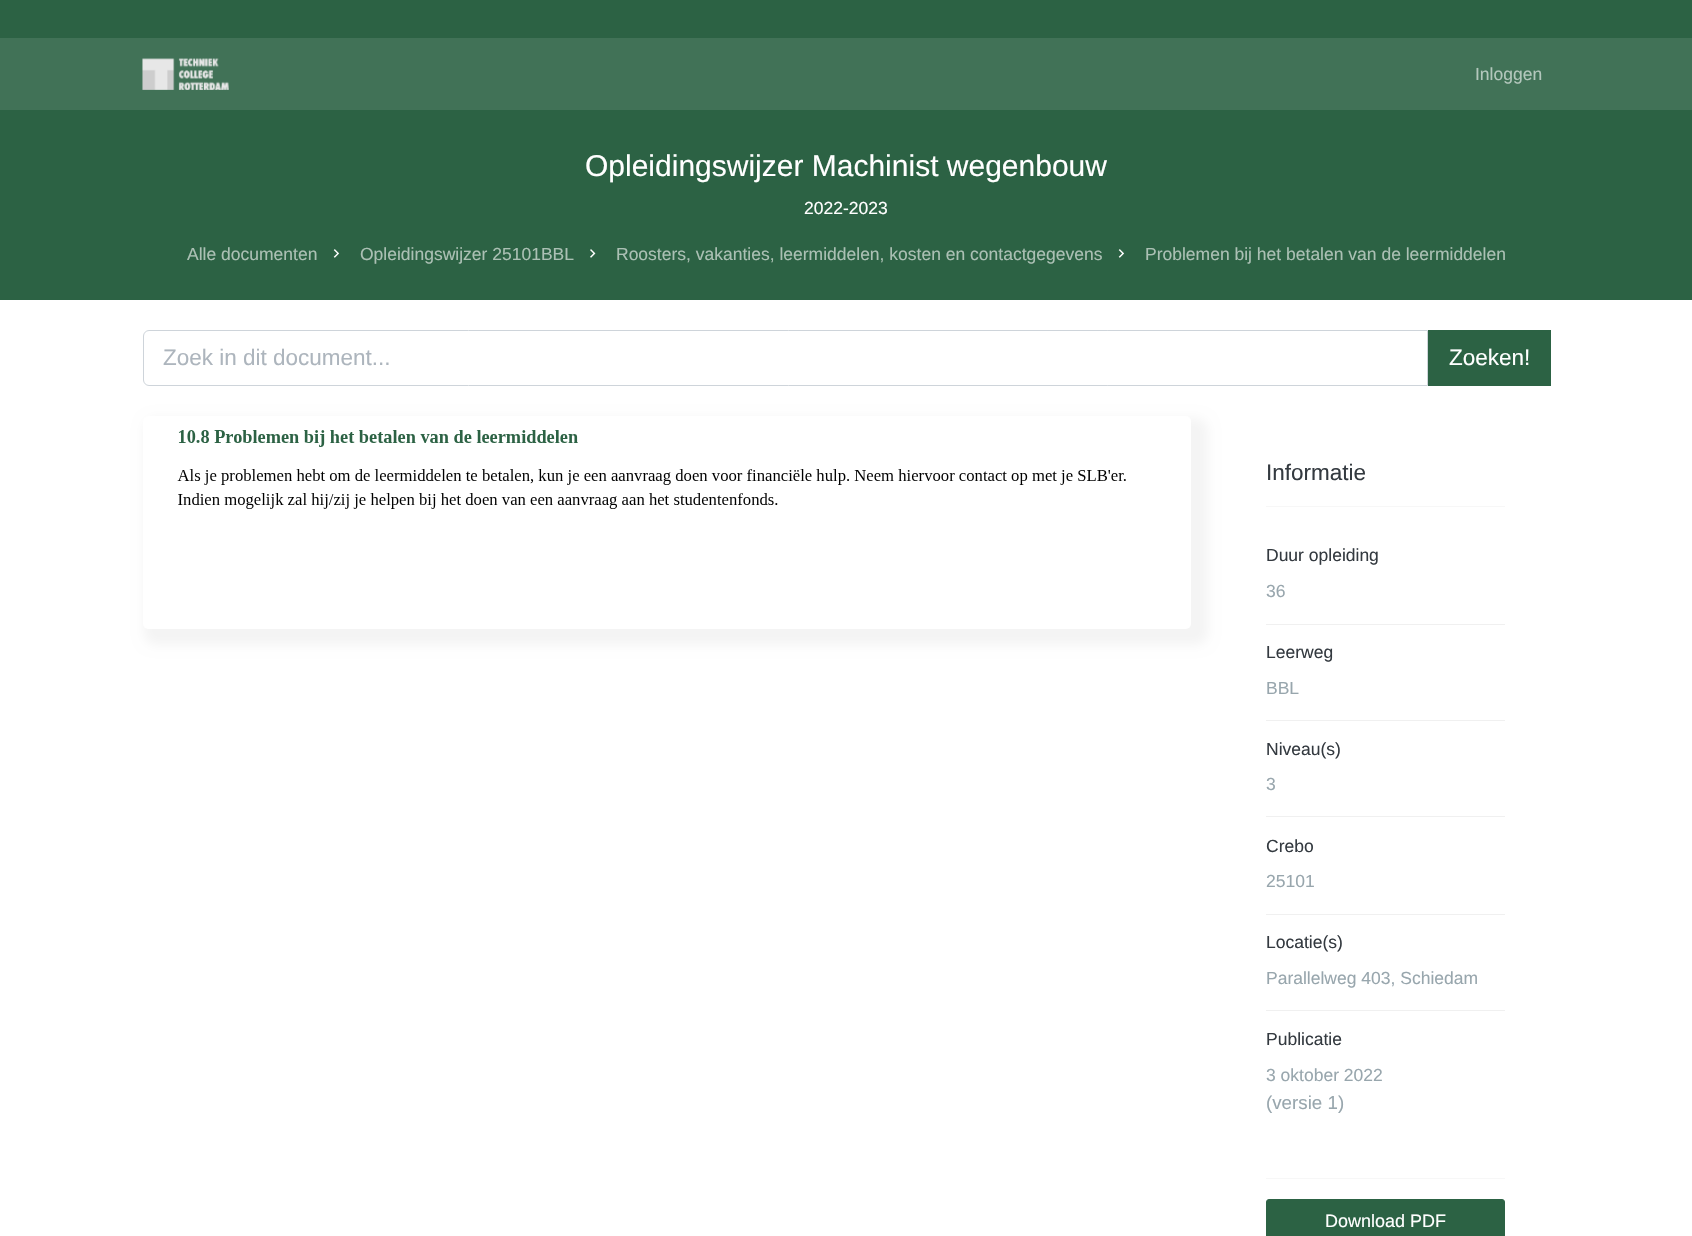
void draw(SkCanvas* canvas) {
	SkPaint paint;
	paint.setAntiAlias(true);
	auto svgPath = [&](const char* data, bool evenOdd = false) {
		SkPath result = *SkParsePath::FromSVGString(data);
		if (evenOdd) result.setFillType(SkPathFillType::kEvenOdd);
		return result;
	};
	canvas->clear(0xff2c6244);
	paint.setColor(0xff417257);
	canvas->drawRect(SkRect::MakeXYWH(0, 38, 1692, 72), paint);
	canvas->drawImageRect(SkImages::DeferredFromEncodedData(SkData::MakeFromFileName("img1.png")), SkRect::MakeXYWH(142, 58, 87, 32), SkSamplingOptions());
	SkFont f1(fontMgr->matchFamilyStyle("Liberation Sans", SkFontStyle::Normal()), 17.5);
	f1.setSubpixel(true);
	paint.setColor(0xffb3c7bc);
	canvas->drawString("Inloggen", 1475, 80, f1, paint);
	SkFont f2(fontMgr->matchFamilyStyle("Liberation Sans", SkFontStyle::Normal()), 30);
	f2.setSubpixel(true);
	paint.setColor(0xffffffff);
	canvas->drawString("Opleidingswijzer Machinist wegenbouw", 585, 176, f2, paint);
	canvas->drawString("2022-2023", 804, 214, f1, paint);
	paint.setColor(0xffabc0b4);
	canvas->drawString("Alle documenten", 187, 260, f1, paint);
	canvas->drawImageRect(SkImages::DeferredFromEncodedData(SkData::MakeFromFileName("img2.png")), SkRect::MakeXYWH(333, 249, 7, 9), SkSamplingOptions());
	canvas->drawString("Opleidingswijzer 25101BBL", 360, 260, f1, paint);
	canvas->drawImageRect(SkImages::DeferredFromEncodedData(SkData::MakeFromFileName("img3.png")), SkRect::MakeXYWH(590, 249, 6, 9), SkSamplingOptions());
	canvas->drawString("Roosters, vakanties, leermiddelen, kosten en contactgegevens", 616, 260, f1, paint);
	canvas->drawImageRect(SkImages::DeferredFromEncodedData(SkData::MakeFromFileName("img2.png")), SkRect::MakeXYWH(1118, 249, 7, 9), SkSamplingOptions());
	canvas->drawString("Problemen bij het betalen van de leermiddelen", 1145, 260, f1, paint);
	paint.setColor(0xffffffff);
	canvas->drawRect(SkRect::MakeXYWH(0, 300, 1692, 936), paint);
	paint.setStroke(true);
	paint.setStrokeWidth(1);
	paint.setColor(0xffced4da);
	canvas->drawPath(svgPath("M149 330.5H1427.5V385.5H149C146 385.5 143.5 383 143.5 380V336C143.5 333 146 330.5 149 330.5Z"), paint);
	SkFont f3(fontMgr->matchFamilyStyle("Liberation Sans", SkFontStyle::Normal()), 22.5);
	f3.setSubpixel(true);
	paint.setStroke(false);
	paint.setColor(0xffadb5bd);
	canvas->drawString("Zoek in dit document...", 163, 365, f3, paint);
	paint.setColor(0xff2c6244);
	canvas->drawRect(SkRect::MakeXYWH(1428, 330, 123, 56), paint);
	paint.setColor(0xffffffff);
	canvas->drawString("Zoeken!", 1449, 365, f3, paint);
	paint.setColor(0xfff4f4f4);
	paint.setMaskFilter(SkMaskFilter::MakeBlur(kNormal_SkBlurStyle, 6));
	canvas->drawRoundRect(SkRect::MakeXYWH(144, 418, 1064, 227), 13, 13, paint);
	paint.setMaskFilter(nullptr);
	paint.setColor(0xffffffff);
	canvas->drawRoundRect(SkRect::MakeXYWH(143, 416, 1048, 213), 5, 5, paint);
	canvas->drawImageRect(SkImages::DeferredFromEncodedData(SkData::MakeFromFileName("img4.png")), SkRect::MakeXYWH(177, 430, 949, 79), SkSamplingOptions());
	paint.setColor(0xff343a40);
	canvas->drawString("Informatie", 1266, 480, f3, paint);
	paint.setColor(0xfff7f7f7);
	canvas->drawRect(SkRect::MakeXYWH(1266, 506, 239, 1), paint);
	paint.setColor(0xfff0f0f0);
	canvas->drawRect(SkRect::MakeXYWH(1266, 624, 239, 1), paint);
	paint.setColor(0xff343a40);
	canvas->drawString("Duur opleiding", 1266, 561, f1, paint);
	paint.setColor(0xff98a6ad);
	canvas->drawString("36", 1266, 597, f1, paint);
	paint.setColor(0xfff0f0f0);
	canvas->drawRect(SkRect::MakeXYWH(1266, 720, 239, 1), paint);
	paint.setColor(0xff343a40);
	canvas->drawString("Leerweg", 1266, 658, f1, paint);
	paint.setColor(0xff98a6ad);
	canvas->drawString("BBL", 1266, 694, f1, paint);
	paint.setColor(0xfff0f0f0);
	canvas->drawRect(SkRect::MakeXYWH(1266, 816, 239, 1), paint);
	paint.setColor(0xff343a40);
	canvas->drawString("Niveau(s)", 1266, 755, f1, paint);
	paint.setColor(0xff98a6ad);
	canvas->drawString("3", 1266, 790, f1, paint);
	paint.setColor(0xfff0f0f0);
	canvas->drawRect(SkRect::MakeXYWH(1266, 914, 239, 1), paint);
	paint.setColor(0xff343a40);
	canvas->drawString("Crebo", 1266, 852, f1, paint);
	paint.setColor(0xff98a6ad);
	canvas->drawString("25101", 1266, 887, f1, paint);
	paint.setColor(0xfff0f0f0);
	canvas->drawRect(SkRect::MakeXYWH(1266, 1010, 239, 1), paint);
	paint.setColor(0xff343a40);
	canvas->drawString("Locatie(s)", 1266, 948, f1, paint);
	paint.setColor(0xff98a6ad);
	canvas->drawString("Parallelweg 403, Schiedam", 1266, 984, f1, paint);
	paint.setColor(0xff343a40);
	canvas->drawString("Publicatie", 1266, 1045, f1, paint);
	paint.setColor(0xff98a6ad);
	canvas->drawString("3 oktober 2022", 1266, 1081, f1, paint);
	SkFont f4(fontMgr->matchFamilyStyle("Liberation Sans", SkFontStyle::Normal()), 18.75);
	f4.setSubpixel(true);
	canvas->drawString("(versie 1)", 1266, 1109, f4, paint);
	paint.setColor(0xfff7f7f7);
	canvas->drawRect(SkRect::MakeXYWH(1266, 1178, 239, 1), paint);
	paint.setColor(0xff2c6244);
	canvas->drawRoundRect(SkRect::MakeXYWH(1266.5, 1199.5, 238, 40), 2.5, 2.5, paint);
	paint.setStroke(true);
	canvas->drawRoundRect(SkRect::MakeXYWH(1266.5, 1199.5, 238, 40), 2.5, 2.5, paint);
	SkFont f5(fontMgr->matchFamilyStyle("Liberation Sans", SkFontStyle::Normal()), 18);
	f5.setSubpixel(true);
	paint.setStroke(false);
	paint.setColor(0xffffffff);
	canvas->drawString("Download PDF", 1325, 1227, f5, paint);
}
